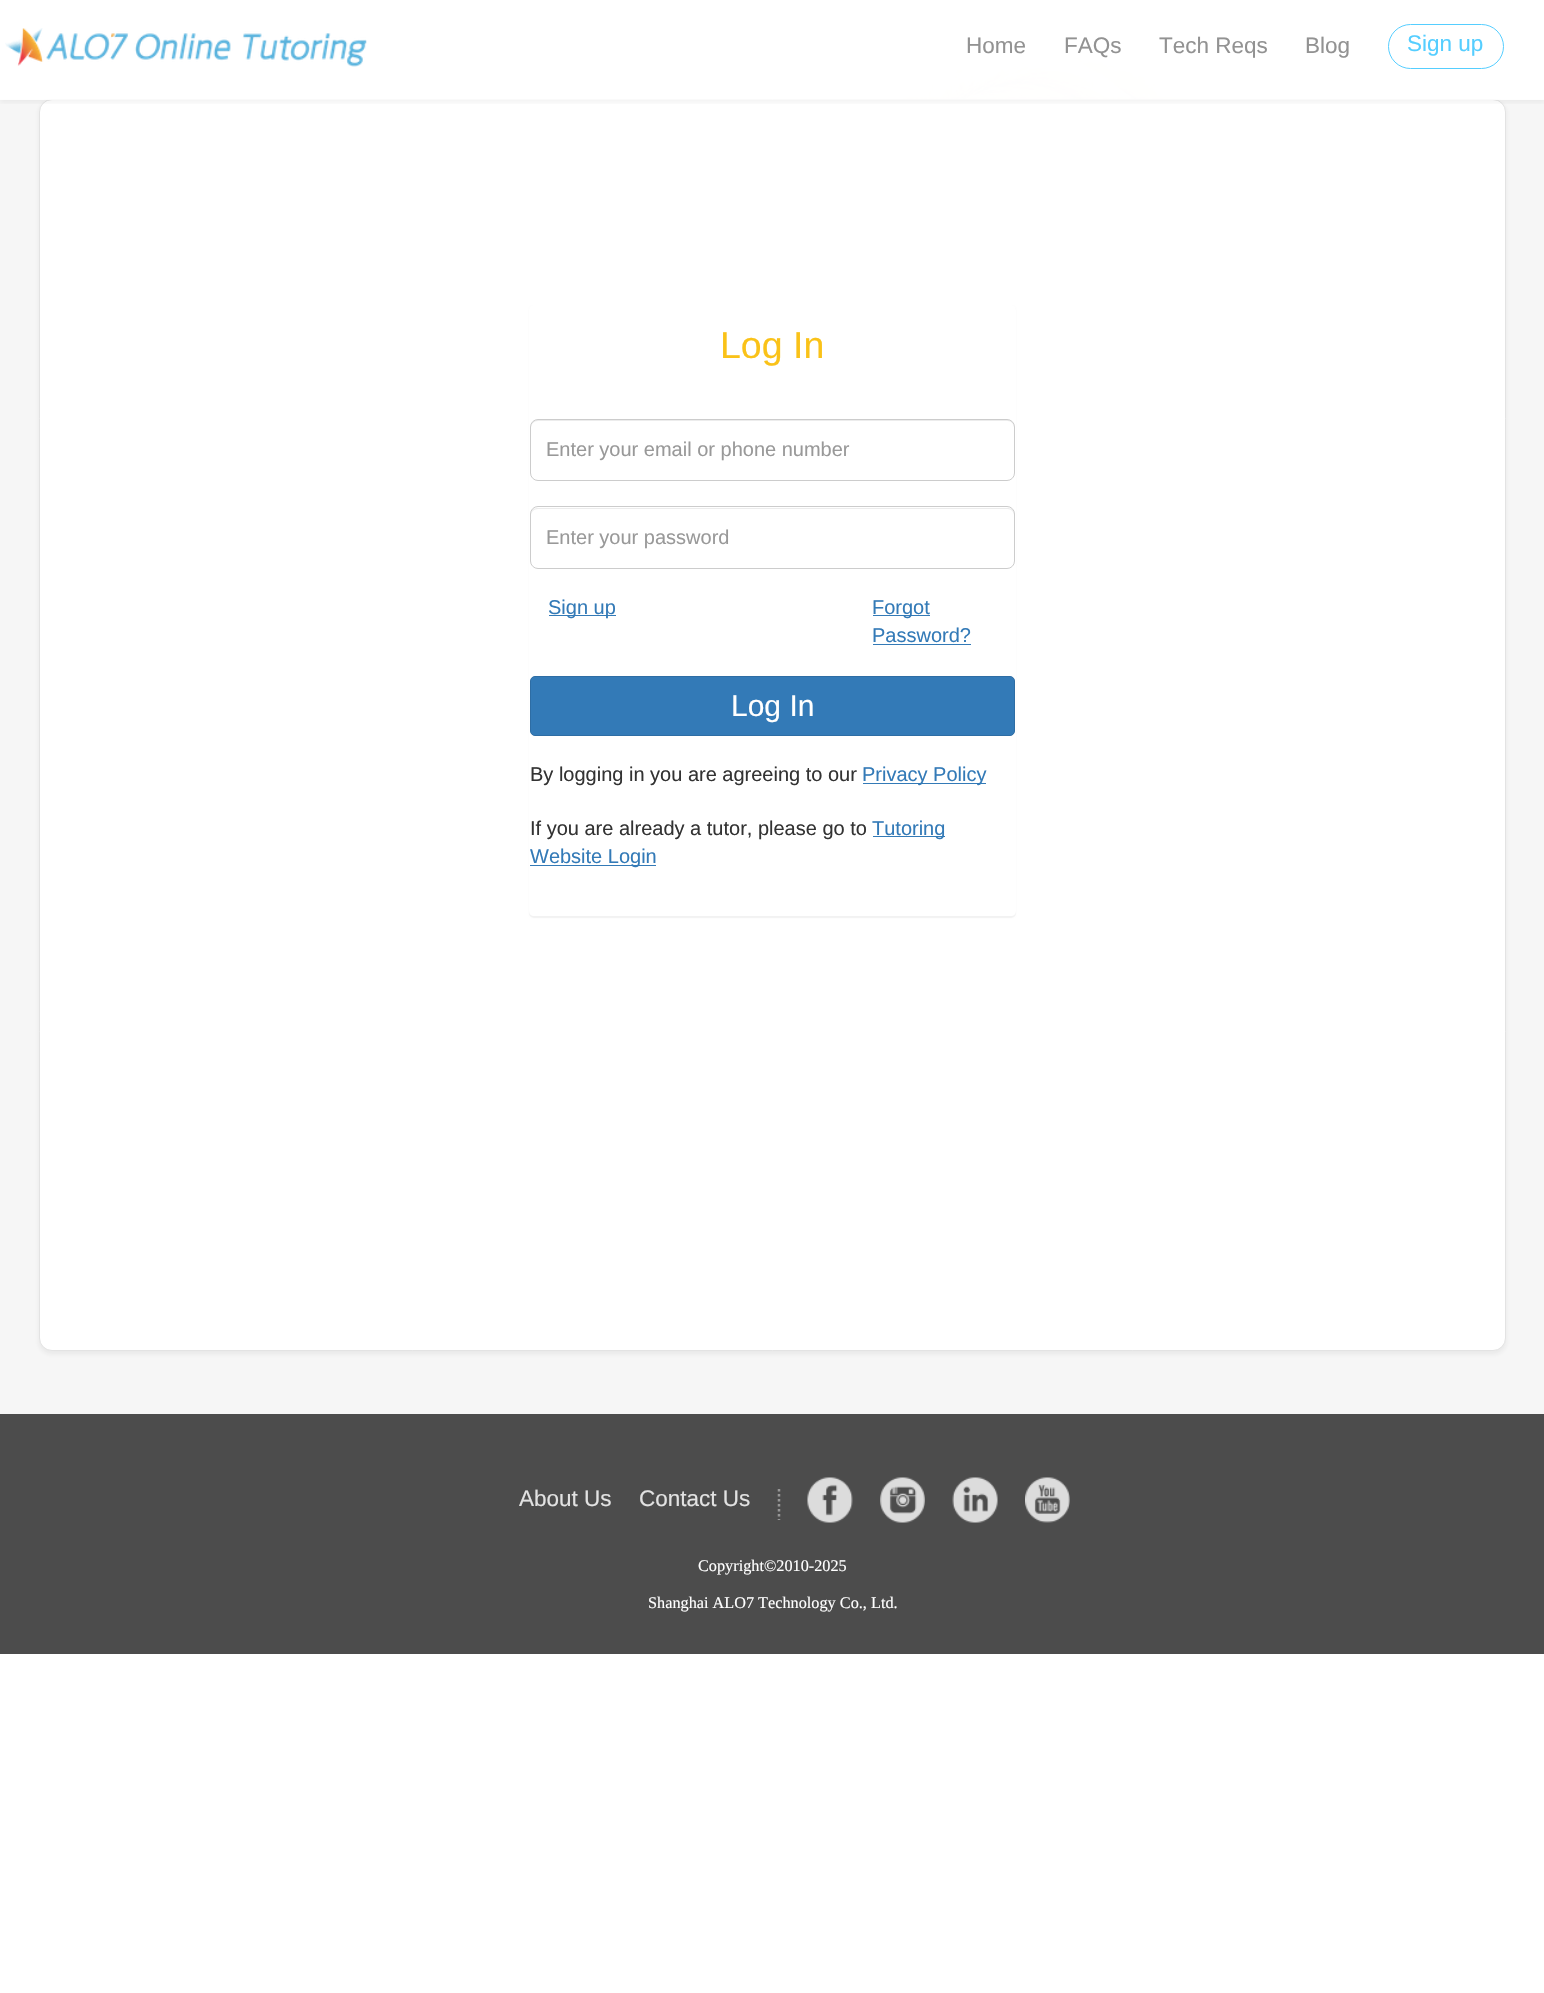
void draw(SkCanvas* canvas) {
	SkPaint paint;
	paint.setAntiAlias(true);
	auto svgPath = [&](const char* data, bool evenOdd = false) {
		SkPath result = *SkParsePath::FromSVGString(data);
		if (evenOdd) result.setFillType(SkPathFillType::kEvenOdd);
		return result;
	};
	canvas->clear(0xffffffff);
	paint.setColor(0xfff6f6f6);
	canvas->drawRect(SkRect::MakeXYWH(0, 99, 1544, 1315), paint);
	canvas->drawImageRect(SkImages::DeferredFromEncodedData(SkData::MakeFromFileName("img2.png")), SkRect::MakeXYWH(40, 55, 1465, 44), SkSamplingOptions());
	paint.setColor(0x122c2c2c);
	paint.setMaskFilter(SkMaskFilter::MakeBlur(kNormal_SkBlurStyle, 2.5));
	canvas->drawRoundRect(SkRect::MakeXYWH(39, 101, 1467, 1253), 13, 13, paint);
	paint.setMaskFilter(nullptr);
	paint.setColor(0xffffffff);
	canvas->drawRoundRect(SkRect::MakeXYWH(39.5, 99.5, 1466, 1251), 12.5, 12.5, paint);
	paint.setStroke(true);
	paint.setStrokeWidth(1);
	paint.setColor(0xffe3e3e3);
	canvas->drawRoundRect(SkRect::MakeXYWH(39.5, 99.5, 1466, 1251), 12.5, 12.5, paint);
	canvas->save();
	canvas->clipRect(SkRect::MakeXYWH(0, 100, 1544, 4));
	paint.setStroke(false);
	paint.setColor(0x0f2c2c2c);
	paint.setMaskFilter(SkMaskFilter::MakeBlur(kNormal_SkBlurStyle, 2.5));
	canvas->drawRect(SkRect::MakeXYWH(0, 3, 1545, 100), paint);
	paint.setMaskFilter(nullptr);
	canvas->restore();
	paint.setColor(0xccffffff);
	canvas->drawRect(SkRect::MakeXYWH(0, 55, 1544, 45), paint);
	canvas->drawImageRect(SkImages::DeferredFromEncodedData(SkData::MakeFromFileName("img1.png")), SkRect::MakeXYWH(5, 28, 362, 39), SkSamplingOptions());
	SkFont f1(fontMgr->matchFamilyStyle("Liberation Sans", SkFontStyle::Normal()), 22.5);
	f1.setSubpixel(true);
	paint.setColor(0xff929292);
	canvas->drawString("Home", 966, 53, f1, paint);
	canvas->drawString("FAQs", 1064, 53, f1, paint);
	canvas->drawString("Tech Reqs", 1159, 53, f1, paint);
	canvas->drawString("Blog", 1305, 53, f1, paint);
	paint.setStroke(true);
	paint.setColor(0xff55ceff);
	canvas->drawRoundRect(SkRect::MakeXYWH(1388.5, 24.5, 115, 44), 22, 22, paint);
	paint.setStroke(false);
	canvas->drawString("Sign up", 1407, 51, f1, paint);
	canvas->save();
	canvas->clipPath(svgPath("M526 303H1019V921H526ZM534 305H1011C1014 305 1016 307 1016 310V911C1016 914 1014 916 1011 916H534C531 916 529 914 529 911V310C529 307 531 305 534 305Z", true), true);
	paint.setColor(0x0d000000);
	paint.setMaskFilter(SkMaskFilter::MakeBlur(kNormal_SkBlurStyle, 0.5));
	canvas->drawRoundRect(SkRect::MakeXYWH(529, 306, 487, 612), 5, 5, paint);
	paint.setMaskFilter(nullptr);
	canvas->restore();
	SkFont f2(fontMgr->matchFamilyStyle("Liberation Sans", SkFontStyle::Normal()), 37.5);
	f2.setSubpixel(true);
	paint.setColor(0xfffac218);
	canvas->drawString("Log In", 720, 358, f2, paint);
	paint.setColor(0xffececec);
	canvas->drawPath(svgPath("M538 421H1008C1011 421 1014 424 1014 428C1014 424 1013 420 1008 420H537C532 420 531 424 531 428C531 424 534 421 538 421Z"), paint);
	paint.setStroke(true);
	paint.setColor(0xffcccccc);
	canvas->drawRoundRect(SkRect::MakeXYWH(530.5, 419.5, 484, 61), 7.5, 7.5, paint);
	SkFont f3(fontMgr->matchFamilyStyle("Liberation Sans", SkFontStyle::Normal()), 20);
	f3.setSubpixel(true);
	paint.setStroke(false);
	paint.setColor(0xff999999);
	canvas->drawString("Enter your email or phone number", 546, 456, f3, paint);
	paint.setColor(0xffececec);
	canvas->drawPath(svgPath("M538 509H1008C1011 509 1014 512 1014 515C1014 511 1012 508 1008 508H537C533 508 531 511 531 515C531 512 534 509 538 509Z"), paint);
	paint.setStroke(true);
	paint.setColor(0xffcccccc);
	canvas->drawRoundRect(SkRect::MakeXYWH(530.5, 506.5, 484, 62), 7.5, 7.5, paint);
	paint.setStroke(false);
	paint.setColor(0xff999999);
	canvas->drawString("Enter your password", 546, 544, f3, paint);
	paint.setColor(0xff337ab7);
	canvas->drawRect(SkRect::MakeXYWH(549, 615, 67, 1), paint);
	canvas->drawString("Sign up", 548, 614, f3, paint);
	canvas->drawRect(SkRect::MakeXYWH(873, 615, 57, 1), paint);
	canvas->drawString("Forgot", 872, 614, f3, paint);
	canvas->drawString("Password?", 872, 642, f3, paint);
	canvas->drawRect(SkRect::MakeXYWH(873, 644, 98, 1), paint);
	canvas->drawRoundRect(SkRect::MakeXYWH(530.5, 676.5, 484, 59), 4.5, 4.5, paint);
	paint.setStroke(true);
	paint.setColor(0xff2e6da4);
	canvas->drawRoundRect(SkRect::MakeXYWH(530.5, 676.5, 484, 59), 4.5, 4.5, paint);
	SkFont f4(fontMgr->matchFamilyStyle("Liberation Sans", SkFontStyle::Normal()), 30);
	f4.setSubpixel(true);
	paint.setStroke(false);
	paint.setColor(0xffffffff);
	canvas->drawString("Log In", 731, 716, f4, paint);
	paint.setColor(0xff333333);
	canvas->drawString("By logging in you are agreeing to our", 530, 781, f3, paint);
	paint.setColor(0xff337ab7);
	canvas->drawRect(SkRect::MakeXYWH(863, 783, 123, 1), paint);
	canvas->drawString("Privacy Policy", 862, 781, f3, paint);
	paint.setColor(0xff333333);
	canvas->drawString("If you are already a tutor, please go to", 530, 835, f3, paint);
	paint.setColor(0xff337ab7);
	canvas->drawRect(SkRect::MakeXYWH(873, 836, 72, 1), paint);
	canvas->drawString("Tutoring", 872, 835, f3, paint);
	canvas->drawRect(SkRect::MakeXYWH(530, 865, 126, 1), paint);
	canvas->drawString("Website Login", 530, 863, f3, paint);
	paint.setColor(0xff4c4c4c);
	canvas->drawRect(SkRect::MakeXYWH(0, 1414, 1544, 240), paint);
	paint.setColor(0xffe2e2e2);
	canvas->drawString("About Us", 519, 1506, f1, paint);
	canvas->drawString("Contact Us", 639, 1506, f1, paint);
	paint.setStroke(true);
	paint.setStrokeWidth(2.5);
	paint.setColor(0xff979797);
	paint.setPathEffect(SkDashPathEffect::Make({{2.5f, 2.5f}}, 0));
	canvas->drawPath(svgPath("M779 1489V1520"), paint);
	paint.setPathEffect(nullptr);
	canvas->drawImageRect(SkImages::DeferredFromEncodedData(SkData::MakeFromFileName("img3.png")), SkRect::MakeXYWH(807, 1477, 46, 46), SkSamplingOptions());
	canvas->drawImageRect(SkImages::DeferredFromEncodedData(SkData::MakeFromFileName("img4.png")), SkRect::MakeXYWH(880, 1477, 45, 46), SkSamplingOptions());
	canvas->drawImageRect(SkImages::DeferredFromEncodedData(SkData::MakeFromFileName("img5.png")), SkRect::MakeXYWH(952, 1477, 46, 46), SkSamplingOptions());
	canvas->drawImageRect(SkImages::DeferredFromEncodedData(SkData::MakeFromFileName("img6.png")), SkRect::MakeXYWH(1025, 1477, 45, 46), SkSamplingOptions());
	SkFont f5(fontMgr->matchFamilyStyle("Liberation Serif", SkFontStyle::Normal()), 16.25);
	f5.setSubpixel(true);
	paint.setStroke(false);
	paint.setColor(0xffffffff);
	canvas->drawString("Copyright©2010-2025", 698, 1571, f5, paint);
	canvas->drawString("Shanghai ALO7 Technology Co., Ltd.", 648, 1608, f5, paint);
}
